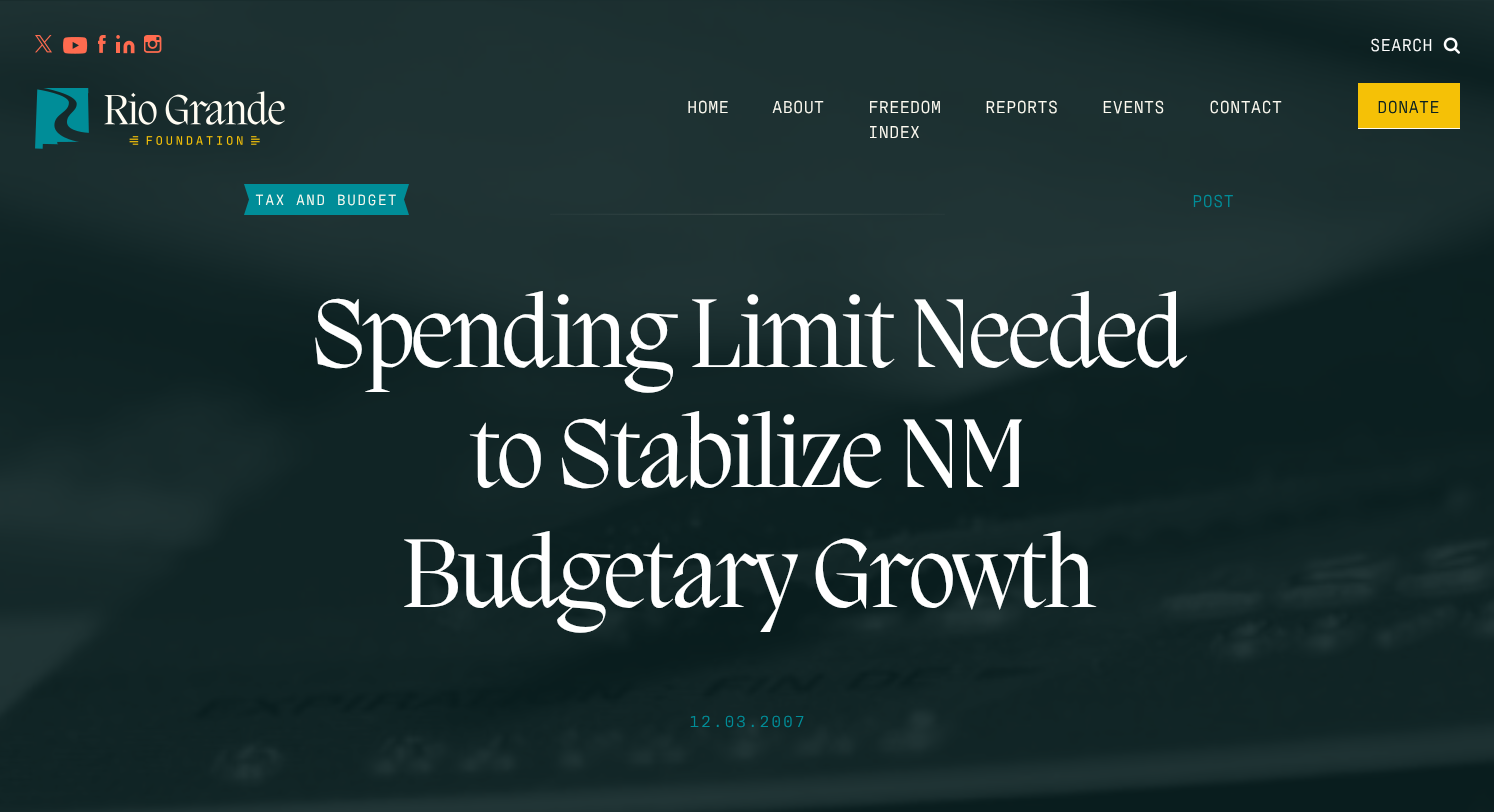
void draw(SkCanvas* canvas) {
	SkPaint paint;
	paint.setAntiAlias(true);
	auto spacedText = [&](const char* s, float x, float y, const SkFont& font, const SkPaint& ink, float letter, float word) {
		std::vector<SkGlyphID> glyphs(font.countText(s, strlen(s), SkTextEncoding::kUTF8));
		std::vector<float> xs(glyphs.size());
		font.textToGlyphs(s, strlen(s), SkTextEncoding::kUTF8, glyphs);
		font.getXPos(glyphs, xs, x);
		float extra = 0;
		for (size_t i = 0; i < glyphs.size(); i++) {
			xs[i] += extra;
			extra += letter + word * (glyphs[i] == font.unicharToGlyph(' '));
		}
		canvas->drawTextBlob(SkTextBlob::MakeFromPosHGlyphs(glyphs, xs, y, font), 0, 0, ink);
	};
	auto svgPath = [&](const char* data, bool evenOdd = false) {
		SkPath result = *SkParsePath::FromSVGString(data);
		if (evenOdd) result.setFillType(SkPathFillType::kEvenOdd);
		return result;
	};
	canvas->clear(0xffffffff);
	canvas->drawImageRect(SkImages::DeferredFromEncodedData(SkData::MakeFromFileName("img8.png")), SkRect::MakeXYWH(0, 0, 1494, 812), SkSamplingOptions());
	canvas->drawImageRect(SkImages::DeferredFromEncodedData(SkData::MakeFromFileName("img1.png")), SkRect::MakeXYWH(35, 35, 17, 18), SkSamplingOptions());
	canvas->drawImageRect(SkImages::DeferredFromEncodedData(SkData::MakeFromFileName("img2.png")), SkRect::MakeXYWH(63, 37, 25, 17), SkSamplingOptions());
	canvas->drawImageRect(SkImages::DeferredFromEncodedData(SkData::MakeFromFileName("img3.png")), SkRect::MakeXYWH(98, 35, 8, 18), SkSamplingOptions());
	canvas->drawImageRect(SkImages::DeferredFromEncodedData(SkData::MakeFromFileName("img4.png")), SkRect::MakeXYWH(116, 35, 19, 19), SkSamplingOptions());
	canvas->drawImageRect(SkImages::DeferredFromEncodedData(SkData::MakeFromFileName("img5.png")), SkRect::MakeXYWH(144, 35, 18, 18), SkSamplingOptions());
	SkFont f1(fontMgr->matchFamilyStyle("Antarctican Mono", SkFontStyle::Normal()), 17.5);
	f1.setSubpixel(true);
	paint.setColor(0xffffffff);
	canvas->drawString("SEARCH", 1370, 51, f1, paint);
	canvas->drawImageRect(SkImages::DeferredFromEncodedData(SkData::MakeFromFileName("img6.png")), SkRect::MakeXYWH(1443, 37, 17, 17), SkSamplingOptions());
	canvas->drawImageRect(SkImages::DeferredFromEncodedData(SkData::MakeFromFileName("img7.png")), SkRect::MakeXYWH(35, 88, 250, 61), SkSamplingOptions());
	paint.setColor(0xfffffcf2);
	canvas->drawString("HOME", 687, 113, f1, paint);
	canvas->drawString("ABOUT", 772, 113, f1, paint);
	canvas->drawString("FREEDOM", 868, 113, f1, paint);
	canvas->drawString("INDEX", 868, 138, f1, paint);
	canvas->drawString("REPORTS", 985, 113, f1, paint);
	canvas->drawString("EVENTS", 1102, 113, f1, paint);
	canvas->drawString("CONTACT", 1209, 113, f1, paint);
	paint.setColor(0xfff5c106);
	canvas->drawRect(SkRect::MakeXYWH(1358, 83, 102, 45), paint);
	paint.setColor(0xfffffcf2);
	canvas->drawRect(SkRect::MakeXYWH(1358, 128, 102, 1), paint);
	paint.setColor(0xff0a2021);
	canvas->drawString("DONATE", 1377, 113, f1, paint);
	canvas->drawImageRect(SkImages::DeferredFromEncodedData(SkData::MakeFromFileName("img9.png")), SkRect::MakeXYWH(550, 213, 395, 2), SkSamplingOptions());
	paint.setColor(0xff008d98);
	canvas->drawRect(SkRect::MakeXYWH(249, 184, 155, 31), paint);
	canvas->drawPath(svgPath("M249 215H244L249 199.5ZM249 199.5L244 184H249Z", true), paint);
	SkFont f2(fontMgr->matchFamilyStyle("Antarctican Mono", SkFontStyle::Normal()), 15);
	f2.setSubpixel(true);
	paint.setColor(0xfffffcf2);
	spacedText("TAX AND BUDGET", 255, 205, f2, paint, 1.25, 0);
	paint.setColor(0xff008d98);
	canvas->drawPath(svgPath("M404 184H409L404 199.5ZM404 199.5L409 215H404Z", true), paint);
	canvas->drawString("POST", 1192, 207, f1, paint);
	SkFont f3(fontMgr->matchFamilyStyle("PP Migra", SkFontStyle::Normal()), 100);
	f3.setSubpixel(true);
	paint.setColor(0xffffffff);
	spacedText("Spending Limit Needed", 311, 367, f3, paint, -2.5, 0);
	spacedText("to Stabilize NM", 470, 487, f3, paint, -2.5, 0);
	spacedText("Budgetary Growth", 401, 607, f3, paint, -2.5, 0);
	paint.setColor(0xff008d98);
	spacedText("12.03.2007", 689, 727, f1, paint, 1.25, 0);
}
